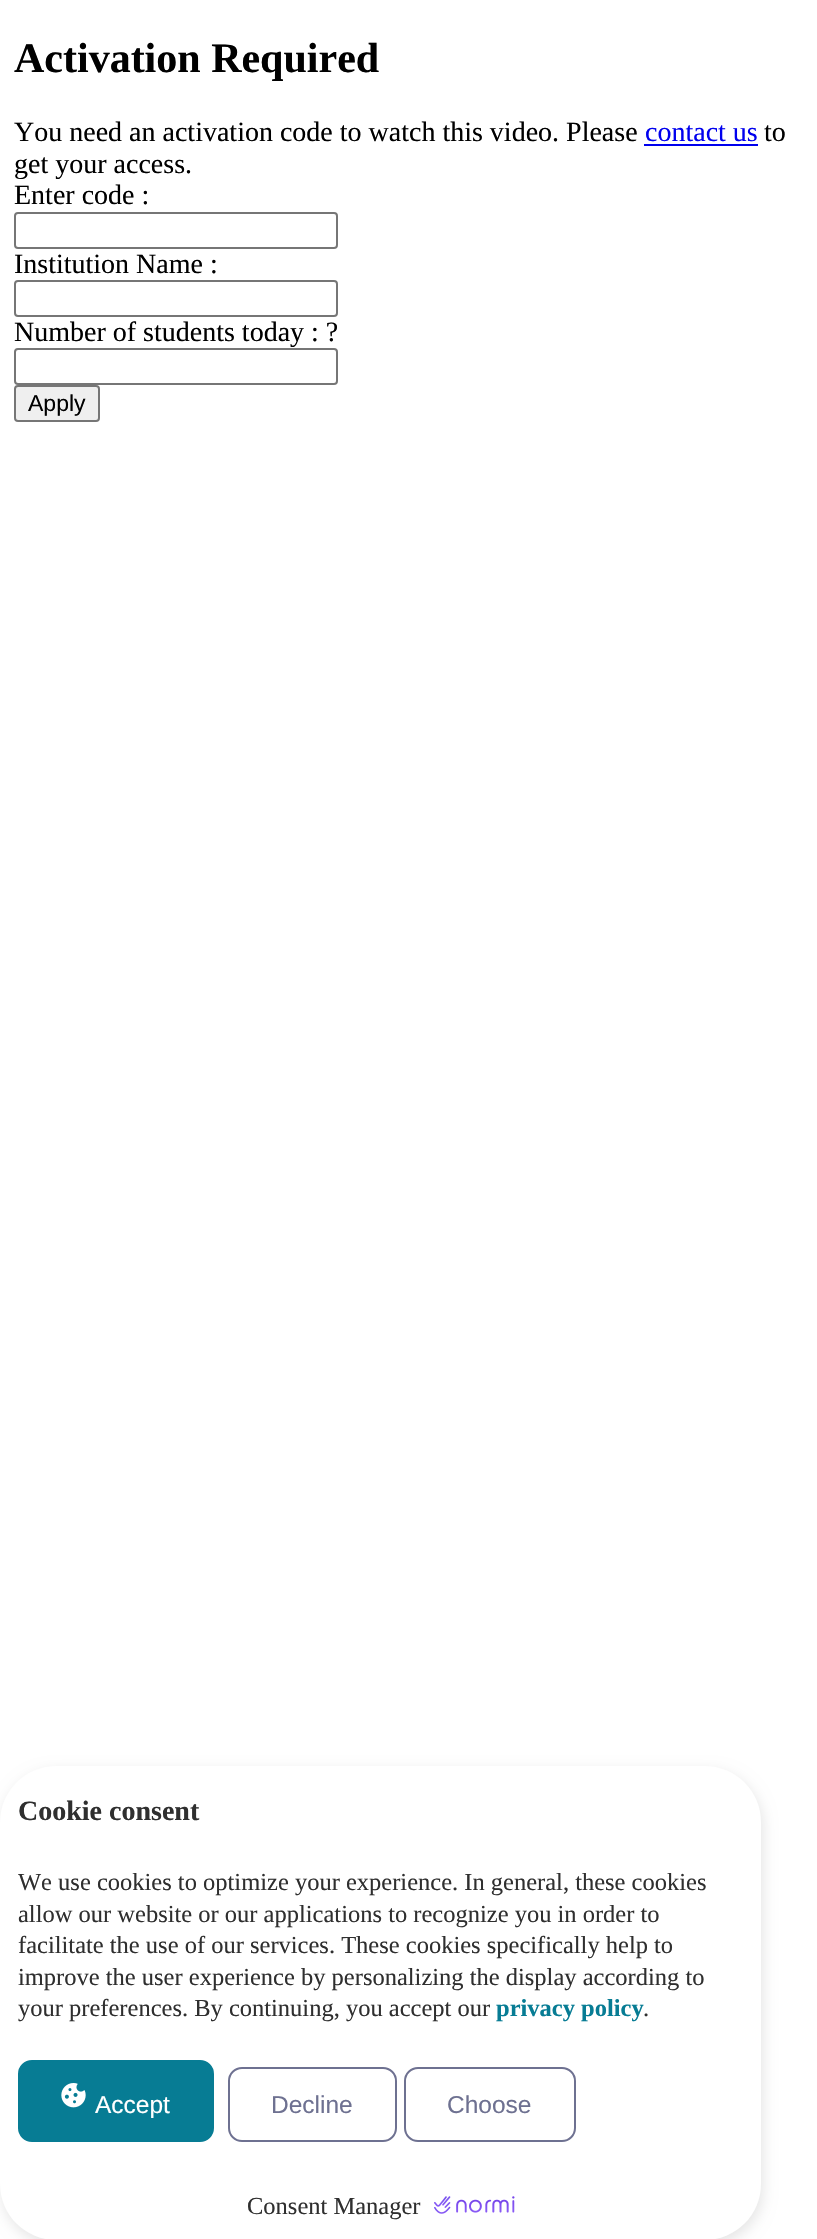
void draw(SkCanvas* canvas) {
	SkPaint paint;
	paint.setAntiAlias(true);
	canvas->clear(0xffffffff);
	SkFont f1(fontMgr->matchFamilyStyle("Liberation Serif", SkFontStyle::Bold()), 42);
	f1.setSubpixel(true);
	paint.setColor(0xff000000);
	canvas->drawString("Activation Required", 14, 72, f1, paint);
	SkFont f2(fontMgr->matchFamilyStyle("Liberation Serif", SkFontStyle::Normal()), 28);
	f2.setSubpixel(true);
	canvas->drawString("You need an activation code to watch this video. Please", 14, 141, f2, paint);
	paint.setColor(0xff0000ee);
	canvas->drawString("contact us", 645, 141, f2, paint);
	canvas->drawRect(SkRect::MakeXYWH(644, 144, 114, 2), paint);
	paint.setColor(0xff000000);
	canvas->drawString("to", 764, 141, f2, paint);
	canvas->drawString("get your access.", 14, 173, f2, paint);
	canvas->drawString("Enter code :", 14, 204, f2, paint);
	paint.setStroke(true);
	paint.setStrokeWidth(2);
	paint.setColor(0xff767676);
	canvas->drawRoundRect(SkRect::MakeXYWH(15, 213, 322, 35), 3, 3, paint);
	paint.setStroke(false);
	paint.setColor(0xff000000);
	canvas->drawString("Institution Name :", 14, 273, f2, paint);
	paint.setStroke(true);
	paint.setColor(0xff767676);
	canvas->drawRoundRect(SkRect::MakeXYWH(15, 281, 322, 35), 3, 3, paint);
	paint.setStroke(false);
	paint.setColor(0xff000000);
	canvas->drawString("Number of students today : ?", 14, 341, f2, paint);
	paint.setStroke(true);
	paint.setColor(0xff767676);
	canvas->drawRoundRect(SkRect::MakeXYWH(15, 349, 322, 35), 3, 3, paint);
	paint.setStroke(false);
	paint.setColor(0xffefefef);
	canvas->drawRoundRect(SkRect::MakeXYWH(15, 386, 84, 35), 3, 3, paint);
	paint.setStroke(true);
	paint.setColor(0xff767676);
	canvas->drawRoundRect(SkRect::MakeXYWH(15, 386, 84, 35), 3, 3, paint);
	SkFont f3(fontMgr->matchFamilyStyle("Liberation Sans", SkFontStyle::Normal()), 23);
	f3.setSubpixel(true);
	paint.setStroke(false);
	paint.setColor(0xff000000);
	canvas->drawString("Apply", 28, 411, f3, paint);
	paint.setColor(0x1a000000);
	paint.setMaskFilter(SkMaskFilter::MakeBlur(kNormal_SkBlurStyle, 7));
	canvas->drawRoundRect(SkRect::MakeXYWH(2, 1771, 761, 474), 56, 56, paint);
	paint.setMaskFilter(nullptr);
	paint.setColor(0xffffffff);
	canvas->drawRoundRect(SkRect::MakeXYWH(0, 1766, 761, 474), 56, 56, paint);
	SkFont f4(fontMgr->matchFamilyStyle("Liberation Serif", SkFontStyle::Bold()), 28);
	f4.setSubpixel(true);
	paint.setColor(0xff2f2f2f);
	canvas->drawString("Cookie consent", 18, 1820, f4, paint);
	SkFont f5(fontMgr->matchFamilyStyle("Liberation Serif", SkFontStyle::Normal()), 24.5);
	f5.setSubpixel(true);
	canvas->drawString("We use cookies to optimize your experience. In general, these cookies", 18, 1890, f5, paint);
	canvas->drawString("allow our website or our applications to recognize you in order to", 18, 1922, f5, paint);
	canvas->drawString("facilitate the use of our services. These cookies specifically help to", 18, 1953, f5, paint);
	canvas->drawString("improve the user experience by personalizing the display according to", 18, 1985, f5, paint);
	canvas->drawString("your preferences. By continuing, you accept our", 18, 2016, f5, paint);
	SkFont f6(fontMgr->matchFamilyStyle("Liberation Serif", SkFontStyle::Bold()), 24.5);
	f6.setSubpixel(true);
	paint.setColor(0xff077c94);
	canvas->drawString("privacy policy", 496, 2016, f6, paint);
	paint.setColor(0xff2f2f2f);
	canvas->drawString(".", 643, 2016, f5, paint);
	paint.setColor(0xff077c94);
	canvas->drawRoundRect(SkRect::MakeXYWH(19, 2061, 194, 80), 13, 13, paint);
	paint.setStroke(true);
	canvas->drawRoundRect(SkRect::MakeXYWH(19, 2061, 194, 80), 13, 13, paint);
	canvas->drawImageRect(SkImages::DeferredFromEncodedData(SkData::MakeFromFileName("img1.png")), SkRect::MakeXYWH(61, 2083, 25, 25), SkSamplingOptions());
	SkFont f7(fontMgr->matchFamilyStyle("Liberation Sans", SkFontStyle::Normal()), 24.5);
	f7.setSubpixel(true);
	paint.setStroke(false);
	paint.setColor(0xffffffff);
	canvas->drawString("Accept", 95, 2113, f7, paint);
	paint.setStroke(true);
	paint.setColor(0xff6e7191);
	canvas->drawRoundRect(SkRect::MakeXYWH(229, 2068, 167, 73), 13, 13, paint);
	paint.setStroke(false);
	canvas->drawString("Decline", 271, 2113, f7, paint);
	paint.setStroke(true);
	canvas->drawRoundRect(SkRect::MakeXYWH(405, 2068, 170, 73), 13, 13, paint);
	paint.setStroke(false);
	canvas->drawString("Choose", 447, 2113, f7, paint);
	paint.setColor(0xff2f2f2f);
	canvas->drawString("Consent Manager", 247, 2214, f5, paint);
	canvas->drawImageRect(SkImages::DeferredFromEncodedData(SkData::MakeFromFileName("img2.png")), SkRect::MakeXYWH(434, 2196, 81, 18), SkSamplingOptions());
}
